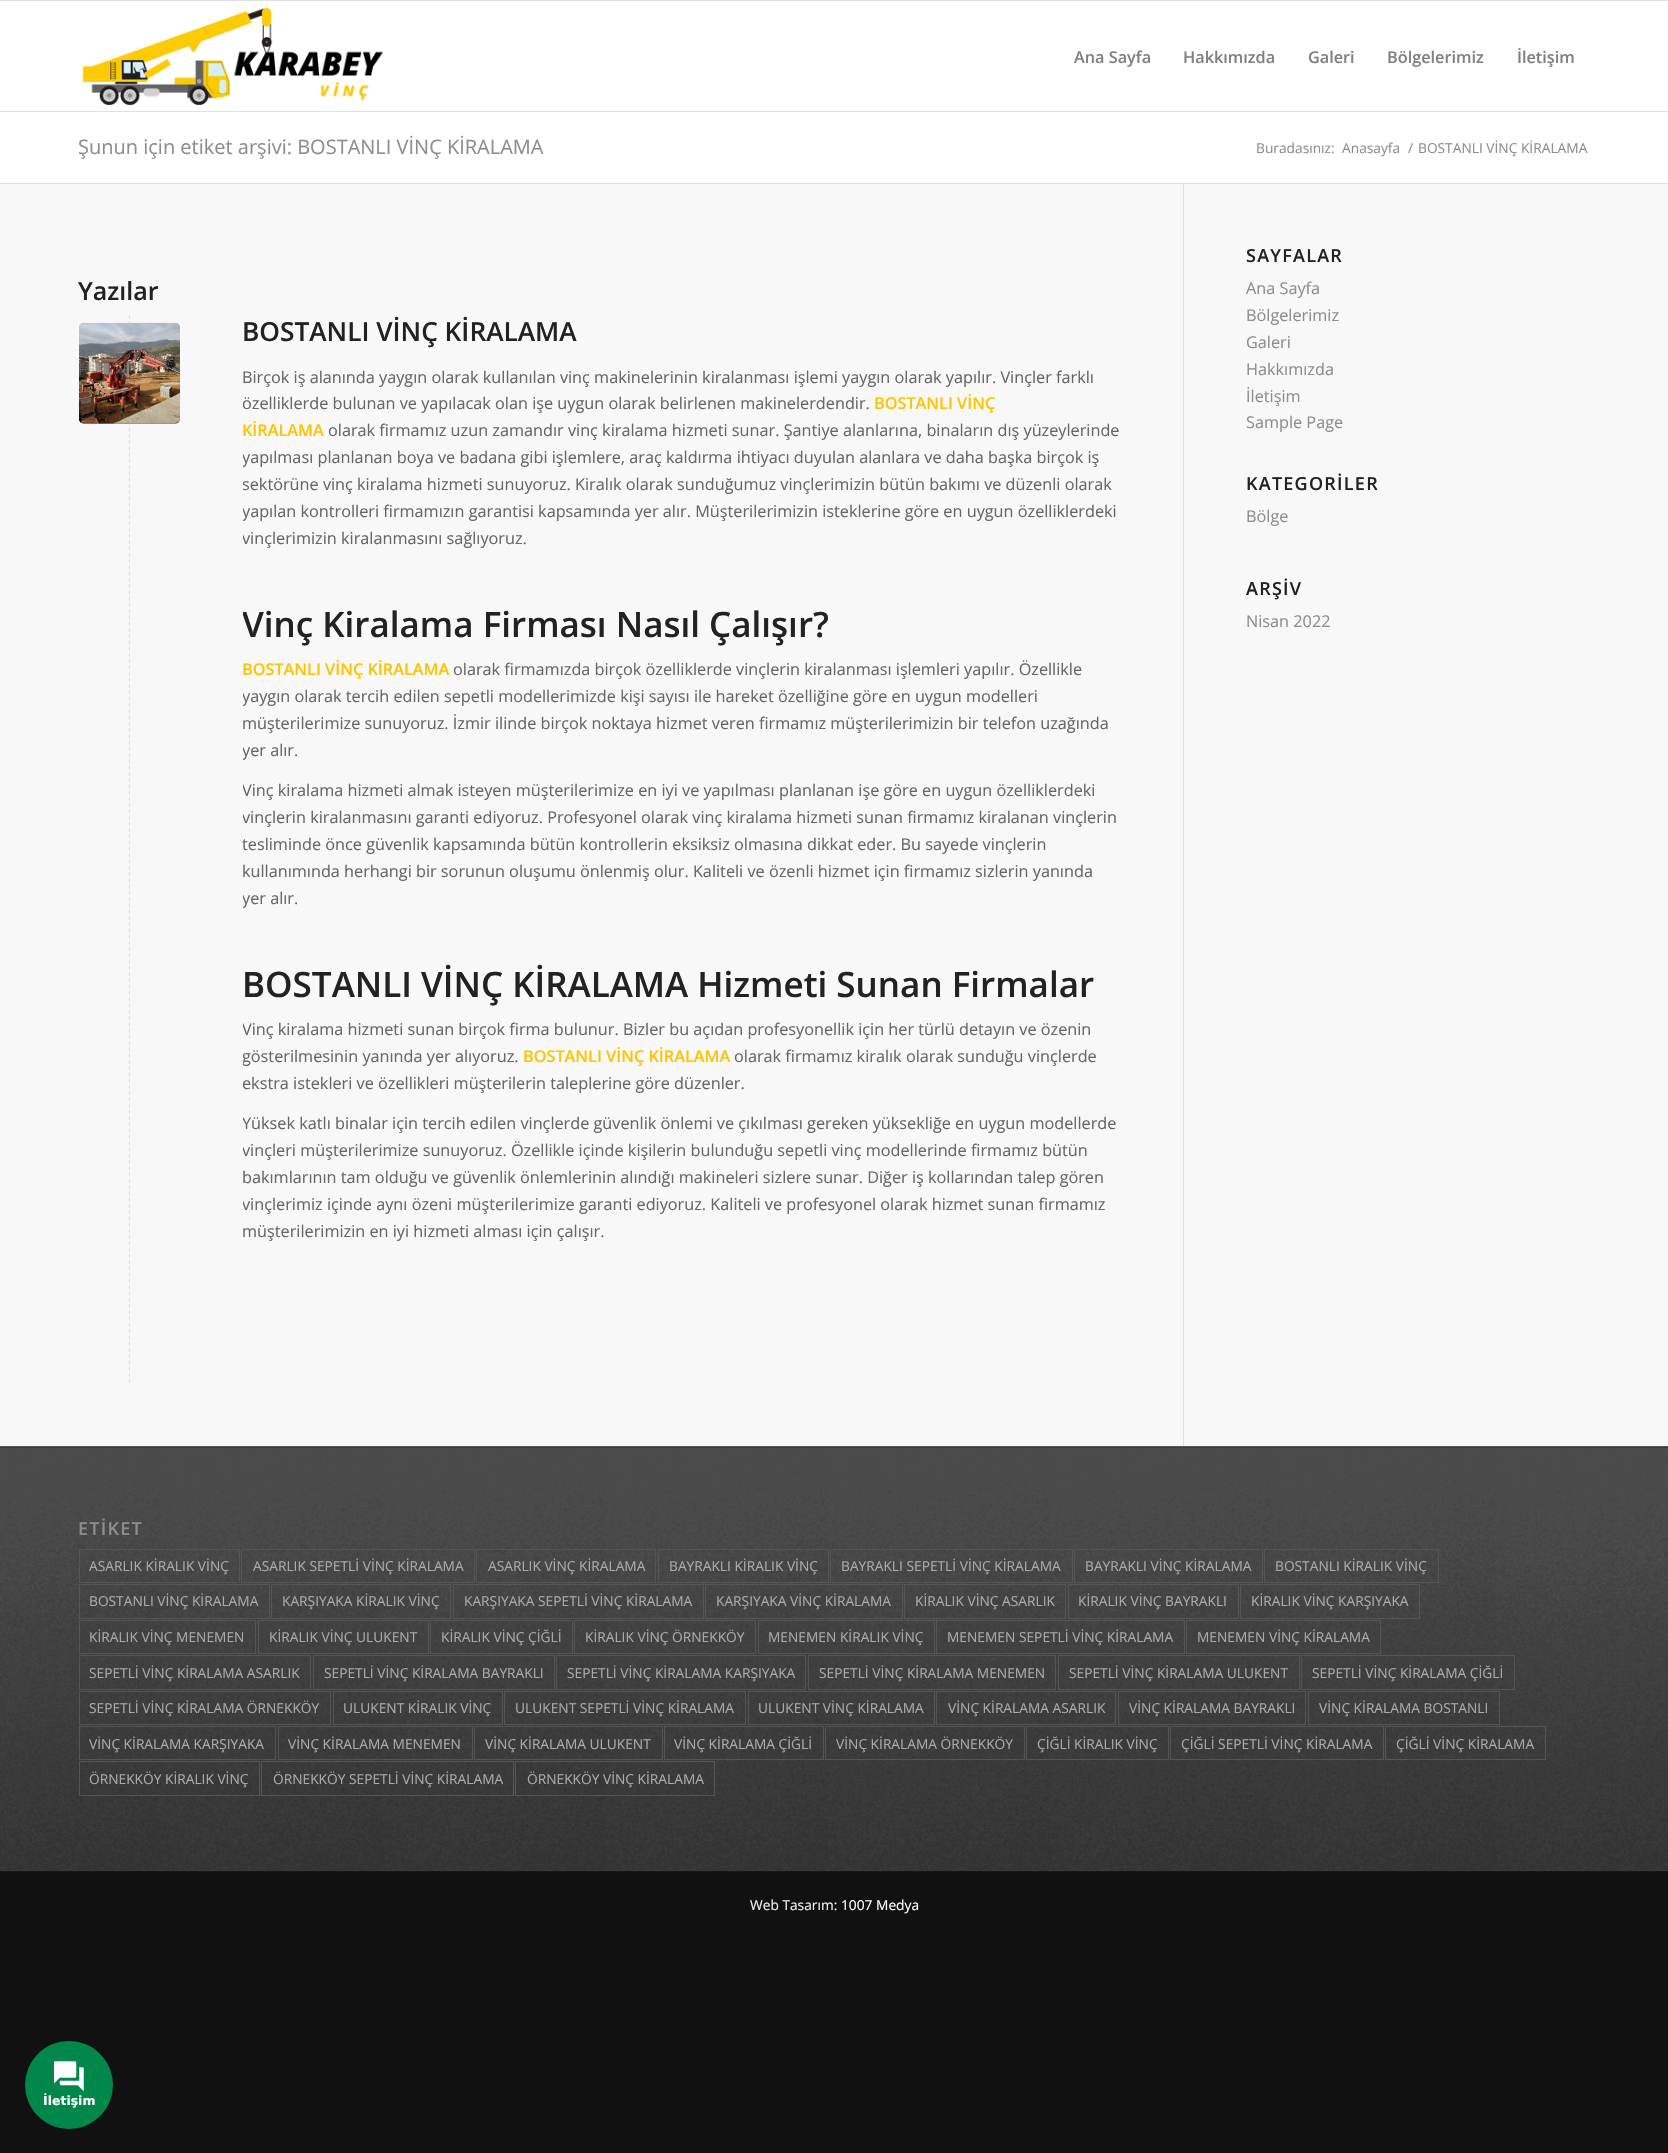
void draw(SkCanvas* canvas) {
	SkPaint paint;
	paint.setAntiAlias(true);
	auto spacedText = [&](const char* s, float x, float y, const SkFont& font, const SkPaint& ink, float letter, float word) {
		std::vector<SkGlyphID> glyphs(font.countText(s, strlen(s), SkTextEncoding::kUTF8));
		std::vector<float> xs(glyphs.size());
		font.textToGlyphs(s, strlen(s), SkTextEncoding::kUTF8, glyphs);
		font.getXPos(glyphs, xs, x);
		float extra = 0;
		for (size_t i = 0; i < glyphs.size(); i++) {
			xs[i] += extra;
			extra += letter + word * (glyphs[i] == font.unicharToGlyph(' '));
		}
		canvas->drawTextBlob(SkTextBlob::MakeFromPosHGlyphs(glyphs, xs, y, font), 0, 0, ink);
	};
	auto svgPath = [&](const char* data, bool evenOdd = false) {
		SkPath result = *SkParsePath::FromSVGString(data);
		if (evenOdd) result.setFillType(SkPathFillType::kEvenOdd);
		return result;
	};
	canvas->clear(0xff111111);
	paint.setColor(0xffe1e1e1);
	canvas->drawRect(SkRect::MakeXYWH(0, 0, 1668, 1), paint);
	paint.setColor(0xffffffff);
	canvas->drawRect(SkRect::MakeXYWH(0, 1, 1668, 182), paint);
	paint.setColor(0xffe1e1e1);
	canvas->drawRect(SkRect::MakeXYWH(0, 111, 1668, 1), paint);
	canvas->drawImageRect(SkImages::DeferredFromEncodedData(SkData::MakeFromFileName("img1.png")), SkRect::MakeXYWH(82, 7, 301, 99), SkSamplingOptions());
	SkFont f1(fontMgr->matchFamilyStyle("Open Sans", SkFontStyle(600, SkFontStyle::kNormal_Width, SkFontStyle::kUpright_Slant)), 16.25);
	f1.setSubpixel(true);
	paint.setColor(0xff808080);
	canvas->drawString("Ana Sayfa", 1074, 63, f1, paint);
	canvas->drawString("Hakkımızda", 1183, 63, f1, paint);
	canvas->drawString("Galeri", 1308, 63, f1, paint);
	canvas->drawString("Bölgelerimiz", 1387, 63, f1, paint);
	canvas->drawString("İletişim", 1517, 63, f1, paint);
	SkFont f2(fontMgr->matchFamilyStyle("Open Sans", SkFontStyle::Normal()), 20);
	f2.setSubpixel(true);
	paint.setColor(0xff8d8d8d);
	canvas->drawString("Şunun için etiket arşivi: BOSTANLI VİNÇ KİRALAMA", 78, 154, f2, paint);
	SkFont f3(fontMgr->matchFamilyStyle("Open Sans", SkFontStyle::Normal()), 13.75);
	f3.setSubpixel(true);
	canvas->drawString("Buradasınız:", 1256, 153, f3, paint);
	canvas->drawString("Anasayfa", 1342, 153, f3, paint);
	canvas->drawString("/", 1408, 153, f3, paint);
	canvas->drawString("BOSTANLI VİNÇ KİRALAMA", 1418, 153, f3, paint);
	paint.setColor(0xfff8f8f8);
	canvas->drawRect(SkRect::MakeXYWH(0, 184, 1668, 1262), paint);
	paint.setColor(0xffe1e1e1);
	canvas->drawRect(SkRect::MakeXYWH(0, 183, 1668, 1), paint);
	canvas->drawRect(SkRect::MakeXYWH(1183, 184, 1, 1262), paint);
	SkFont f4(fontMgr->matchFamilyStyle("Open Sans", SkFontStyle(600, SkFontStyle::kNormal_Width, SkFontStyle::kUpright_Slant)), 25);
	f4.setSubpixel(true);
	paint.setColor(0xff222222);
	canvas->drawString("Yazılar", 78, 300, f4, paint);
	paint.setStroke(true);
	paint.setStrokeWidth(1.2);
	paint.setColor(0xffe1e1e1);
	paint.setPathEffect(SkDashPathEffect::Make({{3.75f, 2.51f}}, 0));
	canvas->drawPath(svgPath("M129.5 315V1384"), paint);
	paint.setPathEffect(nullptr);
	SkFont f5(fontMgr->matchFamilyStyle("Open Sans", SkFontStyle(600, SkFontStyle::kNormal_Width, SkFontStyle::kUpright_Slant)), 26.25);
	f5.setSubpixel(true);
	paint.setStroke(false);
	paint.setColor(0xff222222);
	canvas->drawString("BOSTANLI VİNÇ KİRALAMA", 242, 341, f5, paint);
	SkFont f6(fontMgr->matchFamilyStyle("Open Sans", SkFontStyle::Normal()), 16.25);
	f6.setSubpixel(true);
	paint.setColor(0xff666666);
	canvas->drawString("Birçok iş alanında yaygın olarak kullanılan vinç makinelerinin kiralanması işlemi yaygın olarak yapılır. Vinçler farklı", 242, 383, f6, paint);
	canvas->save();
	canvas->clipRect(SkRect::MakeXYWH(243, 315, 940, 1069));
	canvas->drawString("özelliklerde bulunan ve yapılacak olan işe uygun olarak belirlenen makinelerdendir.", 242, 409, f6, paint);
	canvas->restore();
	paint.setColor(0xffffc400);
	canvas->drawString("BOSTANLI VİNÇ", 874, 409, f1, paint);
	canvas->drawString("KİRALAMA", 242, 436, f1, paint);
	paint.setColor(0xff666666);
	canvas->drawString("olarak firmamız uzun zamandır vinç kiralama hizmeti sunar. Şantiye alanlarına, binaların dış yüzeylerinde", 328, 436, f6, paint);
	canvas->save();
	canvas->clipRect(SkRect::MakeXYWH(243, 315, 940, 1069));
	canvas->drawString("yapılması planlanan boya ve badana gibi işlemlere, araç kaldırma ihtiyacı duyulan alanlara ve daha başka birçok iş", 242, 463, f6, paint);
	canvas->drawString("sektörüne vinç kiralama hizmeti sunuyoruz. Kiralık olarak sunduğumuz vinçlerimizin bütün bakımı ve düzenli olarak", 242, 490, f6, paint);
	canvas->drawString("yapılan kontrolleri firmamızın garantisi kapsamında yer alır. Müşterilerimizin isteklerine göre en uygun özelliklerdeki", 242, 517, f6, paint);
	canvas->drawString("vinçlerimizin kiralanmasını sağlıyoruz.", 242, 544, f6, paint);
	SkFont f7(fontMgr->matchFamilyStyle("Open Sans", SkFontStyle(600, SkFontStyle::kNormal_Width, SkFontStyle::kUpright_Slant)), 35);
	f7.setSubpixel(true);
	paint.setColor(0xff222222);
	canvas->drawString("Vinç Kiralama Firması Nasıl Çalışır?", 242, 637, f7, paint);
	canvas->restore();
	paint.setColor(0xffffc400);
	canvas->drawString("BOSTANLI VİNÇ KİRALAMA", 242, 675, f1, paint);
	paint.setColor(0xff666666);
	canvas->drawString("olarak firmamızda birçok özelliklerde vinçlerin kiralanması işlemleri yapılır. Özellikle", 453, 675, f6, paint);
	canvas->save();
	canvas->clipRect(SkRect::MakeXYWH(243, 315, 940, 1069));
	canvas->drawString("yaygın olarak tercih edilen sepetli modellerimizde kişi sayısı ile hareket özelliğine göre en uygun modelleri", 242, 702, f6, paint);
	canvas->restore();
	canvas->drawString("müşterilerimize sunuyoruz. İzmir ilinde birçok noktaya hizmet veren firmamız müşterilerimizin bir telefon uzağında", 242, 729, f6, paint);
	canvas->save();
	canvas->clipRect(SkRect::MakeXYWH(243, 315, 940, 1069));
	canvas->drawString("yer alır.", 242, 756, f6, paint);
	canvas->drawString("Vinç kiralama hizmeti almak isteyen müşterilerimize en iyi ve yapılması planlanan işe göre en uygun özelliklerdeki", 242, 796, f6, paint);
	canvas->drawString("vinçlerin kiralanmasını garanti ediyoruz. Profesyonel olarak vinç kiralama hizmeti sunan firmamız kiralanan vinçlerin", 242, 823, f6, paint);
	canvas->restore();
	canvas->drawString("tesliminde önce güvenlik kapsamında bütün kontrollerin eksiksiz olmasına dikkat eder. Bu sayede vinçlerin", 242, 850, f6, paint);
	canvas->drawString("kullanımında herhangi bir sorunun oluşumu önlenmiş olur. Kaliteli ve özenli hizmet için firmamız sizlerin yanında", 242, 877, f6, paint);
	canvas->save();
	canvas->clipRect(SkRect::MakeXYWH(243, 315, 940, 1069));
	canvas->drawString("yer alır.", 242, 904, f6, paint);
	canvas->restore();
	paint.setColor(0xff222222);
	canvas->drawString("BOSTANLI VİNÇ KİRALAMA Hizmeti Sunan Firmalar", 242, 997, f7, paint);
	canvas->save();
	canvas->clipRect(SkRect::MakeXYWH(243, 315, 940, 1069));
	paint.setColor(0xff666666);
	canvas->drawString("Vinç kiralama hizmeti sunan birçok firma bulunur. Bizler bu açıdan profesyonellik için her türlü detayın ve özenin", 242, 1035, f6, paint);
	canvas->drawString("gösterilmesinin yanında yer alıyoruz.", 242, 1062, f6, paint);
	canvas->restore();
	paint.setColor(0xffffc400);
	canvas->drawString("BOSTANLI VİNÇ KİRALAMA", 523, 1062, f1, paint);
	paint.setColor(0xff666666);
	canvas->drawString("olarak firmamız kiralık olarak sunduğu vinçlerde", 734, 1062, f6, paint);
	canvas->save();
	canvas->clipRect(SkRect::MakeXYWH(243, 315, 940, 1069));
	canvas->drawString("ekstra istekleri ve özellikleri müşterilerin taleplerine göre düzenler.", 242, 1089, f6, paint);
	canvas->drawString("Yüksek katlı binalar için tercih edilen vinçlerde güvenlik önlemi ve çıkılması gereken yüksekliğe en uygun modellerde", 242, 1129, f6, paint);
	canvas->drawString("vinçleri müşterilerimize sunuyoruz. Özellikle içinde kişilerin bulunduğu sepetli vinç modellerinde firmamız bütün", 242, 1156, f6, paint);
	canvas->restore();
	canvas->drawString("bakımlarının tam olduğu ve güvenlik önlemlerinin alındığı makineleri sizlere sunar. Diğer iş kollarından talep gören", 242, 1183, f6, paint);
	canvas->save();
	canvas->clipRect(SkRect::MakeXYWH(243, 315, 940, 1069));
	canvas->drawString("vinçlerimiz içinde aynı özeni müşterilerimize garanti ediyoruz. Kaliteli ve profesyonel olarak hizmet sunan firmamız", 242, 1210, f6, paint);
	canvas->restore();
	canvas->drawString("müşterilerimizin en iyi hizmeti alması için çalışır.", 242, 1237, f6, paint);
	paint.setColor(0xff8d8d8d);
	canvas->drawRoundRect(SkRect::MakeXYWH(79, 323, 101, 101), 5, 5, paint);
	canvas->drawImageRect(SkImages::DeferredFromEncodedData(SkData::MakeFromFileName("img2.png")), SkRect::MakeXYWH(79, 322, 101, 102), SkSamplingOptions());
	SkFont f8(fontMgr->matchFamilyStyle("Open Sans", SkFontStyle(600, SkFontStyle::kNormal_Width, SkFontStyle::kUpright_Slant)), 18);
	f8.setSubpixel(true);
	paint.setColor(0xff222222);
	spacedText("SAYFALAR", 1246, 262, f8, paint, 1.25, 0);
	paint.setColor(0xff8d8d8d);
	canvas->drawString("Ana Sayfa", 1246, 294, f6, paint);
	canvas->drawString("Bölgelerimiz", 1246, 321, f6, paint);
	canvas->drawString("Galeri", 1246, 348, f6, paint);
	canvas->drawString("Hakkımızda", 1246, 375, f6, paint);
	canvas->drawString("İletişim", 1246, 402, f6, paint);
	canvas->drawString("Sample Page", 1246, 428, f6, paint);
	paint.setColor(0xff222222);
	spacedText("KATEGORİLER", 1246, 490, f8, paint, 1.25, 0);
	paint.setColor(0xff8d8d8d);
	canvas->drawString("Bölge", 1246, 522, f6, paint);
	paint.setColor(0xff222222);
	spacedText("ARŞİV", 1246, 595, f8, paint, 1.25, 0);
	paint.setColor(0xff8d8d8d);
	canvas->drawString("Nisan 2022", 1246, 627, f6, paint);
	paint.setColor(0xff333333);
	canvas->drawRect(SkRect::MakeXYWH(0, 1447, 1668, 424), paint);
	canvas->drawImageRect(SkImages::DeferredFromEncodedData(SkData::MakeFromFileName("img3.png")), SkRect::MakeXYWH(0, 1447, 1668, 424), SkSamplingOptions());
	paint.setColor(0xff555555);
	canvas->drawRect(SkRect::MakeXYWH(0, 1446, 1668, 1), paint);
	paint.setColor(0xff8d8d8d);
	spacedText("ETİKET", 78, 1535, f8, paint, 1.25, 0);
	paint.setStroke(true);
	paint.setStrokeWidth(1);
	paint.setColor(0xff555555);
	canvas->drawRect(SkRect::MakeXYWH(79.5, 1549.5, 160, 33), paint);
	paint.setStroke(false);
	paint.setColor(0xffaaaaaa);
	canvas->drawString("ASARLIK KİRALIK VİNÇ", 89, 1571, f3, paint);
	paint.setStroke(true);
	paint.setColor(0xff555555);
	canvas->drawRect(SkRect::MakeXYWH(241.5, 1549.5, 233, 33), paint);
	paint.setStroke(false);
	paint.setColor(0xffaaaaaa);
	canvas->drawString("ASARLIK SEPETLİ VİNÇ KİRALAMA", 253, 1571, f3, paint);
	paint.setStroke(true);
	paint.setColor(0xff555555);
	canvas->drawRect(SkRect::MakeXYWH(476.5, 1549.5, 179, 33), paint);
	paint.setStroke(false);
	paint.setColor(0xffaaaaaa);
	canvas->drawString("ASARLIK VİNÇ KİRALAMA", 488, 1571, f3, paint);
	paint.setStroke(true);
	paint.setColor(0xff555555);
	canvas->drawRect(SkRect::MakeXYWH(658.5, 1549.5, 170, 33), paint);
	paint.setStroke(false);
	paint.setColor(0xffaaaaaa);
	canvas->drawString("BAYRAKLI KİRALIK VİNÇ", 669, 1571, f3, paint);
	paint.setStroke(true);
	paint.setColor(0xff555555);
	canvas->drawRect(SkRect::MakeXYWH(830.5, 1549.5, 242, 33), paint);
	paint.setStroke(false);
	paint.setColor(0xffaaaaaa);
	canvas->drawString("BAYRAKLI SEPETLİ VİNÇ KİRALAMA", 841, 1571, f3, paint);
	paint.setStroke(true);
	paint.setColor(0xff555555);
	canvas->drawRect(SkRect::MakeXYWH(1074.5, 1549.5, 188, 33), paint);
	paint.setStroke(false);
	paint.setColor(0xffaaaaaa);
	canvas->drawString("BAYRAKLI VİNÇ KİRALAMA", 1085, 1571, f3, paint);
	paint.setStroke(true);
	paint.setColor(0xff555555);
	canvas->drawRect(SkRect::MakeXYWH(1264.5, 1549.5, 174, 33), paint);
	paint.setStroke(false);
	paint.setColor(0xffaaaaaa);
	canvas->drawString("BOSTANLI KİRALIK VİNÇ", 1275, 1571, f3, paint);
	paint.setStroke(true);
	paint.setColor(0xff555555);
	canvas->drawRect(SkRect::MakeXYWH(79.5, 1584.5, 190, 34), paint);
	paint.setStroke(false);
	paint.setColor(0xffaaaaaa);
	canvas->drawString("BOSTANLI VİNÇ KİRALAMA", 89, 1606, f3, paint);
	paint.setStroke(true);
	paint.setColor(0xff555555);
	canvas->drawRect(SkRect::MakeXYWH(271.5, 1584.5, 179, 34), paint);
	paint.setStroke(false);
	paint.setColor(0xffaaaaaa);
	canvas->drawString("KARŞIYAKA KİRALIK VİNÇ", 282, 1606, f3, paint);
	paint.setStroke(true);
	paint.setColor(0xff555555);
	canvas->drawRect(SkRect::MakeXYWH(453.5, 1584.5, 250, 34), paint);
	paint.setStroke(false);
	paint.setColor(0xffaaaaaa);
	canvas->drawString("KARŞIYAKA SEPETLİ VİNÇ KİRALAMA", 464, 1606, f3, paint);
	paint.setStroke(true);
	paint.setColor(0xff555555);
	canvas->drawRect(SkRect::MakeXYWH(705.5, 1584.5, 197, 34), paint);
	paint.setStroke(false);
	paint.setColor(0xffaaaaaa);
	canvas->drawString("KARŞIYAKA VİNÇ KİRALAMA", 716, 1606, f3, paint);
	paint.setStroke(true);
	paint.setColor(0xff555555);
	canvas->drawRect(SkRect::MakeXYWH(904.5, 1584.5, 161, 34), paint);
	paint.setStroke(false);
	paint.setColor(0xffaaaaaa);
	canvas->drawString("KİRALIK VİNÇ ASARLIK", 915, 1606, f3, paint);
	paint.setStroke(true);
	paint.setColor(0xff555555);
	canvas->drawRect(SkRect::MakeXYWH(1068.5, 1584.5, 170, 34), paint);
	paint.setStroke(false);
	paint.setColor(0xffaaaaaa);
	canvas->drawString("KİRALIK VİNÇ BAYRAKLI", 1078, 1606, f3, paint);
	paint.setStroke(true);
	paint.setColor(0xff555555);
	canvas->drawRect(SkRect::MakeXYWH(1240.5, 1584.5, 179, 34), paint);
	paint.setStroke(false);
	paint.setColor(0xffaaaaaa);
	canvas->drawString("KİRALIK VİNÇ KARŞIYAKA", 1251, 1606, f3, paint);
	paint.setStroke(true);
	paint.setColor(0xff555555);
	canvas->drawRect(SkRect::MakeXYWH(79.5, 1620.5, 176, 33), paint);
	paint.setStroke(false);
	paint.setColor(0xffaaaaaa);
	canvas->drawString("KİRALIK VİNÇ MENEMEN", 89, 1642, f3, paint);
	paint.setStroke(true);
	paint.setColor(0xff555555);
	canvas->drawRect(SkRect::MakeXYWH(258.5, 1620.5, 170, 33), paint);
	paint.setStroke(false);
	paint.setColor(0xffaaaaaa);
	canvas->drawString("KİRALIK VİNÇ ULUKENT", 269, 1642, f3, paint);
	paint.setStroke(true);
	paint.setColor(0xff555555);
	canvas->drawRect(SkRect::MakeXYWH(430.5, 1620.5, 142, 33), paint);
	paint.setStroke(false);
	paint.setColor(0xffaaaaaa);
	canvas->drawString("KİRALIK VİNÇ ÇİĞLİ", 441, 1642, f3, paint);
	paint.setStroke(true);
	paint.setColor(0xff555555);
	canvas->drawRect(SkRect::MakeXYWH(574.5, 1620.5, 181, 33), paint);
	paint.setStroke(false);
	paint.setColor(0xffaaaaaa);
	canvas->drawString("KİRALIK VİNÇ ÖRNEKKÖY", 585, 1642, f3, paint);
	paint.setStroke(true);
	paint.setColor(0xff555555);
	canvas->drawRect(SkRect::MakeXYWH(758.5, 1620.5, 176, 33), paint);
	paint.setStroke(false);
	paint.setColor(0xffaaaaaa);
	canvas->drawString("MENEMEN KİRALIK VİNÇ", 768, 1642, f3, paint);
	paint.setStroke(true);
	paint.setColor(0xff555555);
	canvas->drawRect(SkRect::MakeXYWH(936.5, 1620.5, 248, 33), paint);
	paint.setStroke(false);
	paint.setColor(0xffaaaaaa);
	canvas->drawString("MENEMEN SEPETLİ VİNÇ KİRALAMA", 947, 1642, f3, paint);
	paint.setStroke(true);
	paint.setColor(0xff555555);
	canvas->drawRect(SkRect::MakeXYWH(1186.5, 1620.5, 194, 33), paint);
	paint.setStroke(false);
	paint.setColor(0xffaaaaaa);
	canvas->drawString("MENEMEN VİNÇ KİRALAMA", 1197, 1642, f3, paint);
	paint.setStroke(true);
	paint.setColor(0xff555555);
	canvas->drawRect(SkRect::MakeXYWH(79.5, 1655.5, 231, 34), paint);
	paint.setStroke(false);
	paint.setColor(0xffaaaaaa);
	canvas->drawString("SEPETLİ VİNÇ KİRALAMA ASARLIK", 89, 1678, f3, paint);
	paint.setStroke(true);
	paint.setColor(0xff555555);
	canvas->drawRect(SkRect::MakeXYWH(313.5, 1655.5, 241, 34), paint);
	paint.setStroke(false);
	paint.setColor(0xffaaaaaa);
	canvas->drawString("SEPETLİ VİNÇ KİRALAMA BAYRAKLI", 324, 1678, f3, paint);
	paint.setStroke(true);
	paint.setColor(0xff555555);
	canvas->drawRect(SkRect::MakeXYWH(556.5, 1655.5, 249, 34), paint);
	paint.setStroke(false);
	paint.setColor(0xffaaaaaa);
	canvas->drawString("SEPETLİ VİNÇ KİRALAMA KARŞIYAKA", 567, 1678, f3, paint);
	paint.setStroke(true);
	paint.setColor(0xff555555);
	canvas->drawRect(SkRect::MakeXYWH(808.5, 1655.5, 247, 34), paint);
	paint.setStroke(false);
	paint.setColor(0xffaaaaaa);
	canvas->drawString("SEPETLİ VİNÇ KİRALAMA MENEMEN", 819, 1678, f3, paint);
	paint.setStroke(true);
	paint.setColor(0xff555555);
	canvas->drawRect(SkRect::MakeXYWH(1058.5, 1655.5, 241, 34), paint);
	paint.setStroke(false);
	paint.setColor(0xffaaaaaa);
	canvas->drawString("SEPETLİ VİNÇ KİRALAMA ULUKENT", 1069, 1678, f3, paint);
	paint.setStroke(true);
	paint.setColor(0xff555555);
	canvas->drawRect(SkRect::MakeXYWH(1301.5, 1655.5, 213, 34), paint);
	paint.setStroke(false);
	paint.setColor(0xffaaaaaa);
	canvas->drawString("SEPETLİ VİNÇ KİRALAMA ÇİĞLİ", 1312, 1678, f3, paint);
	paint.setStroke(true);
	paint.setColor(0xff555555);
	canvas->drawRect(SkRect::MakeXYWH(79.5, 1691.5, 251, 33), paint);
	paint.setStroke(false);
	paint.setColor(0xffaaaaaa);
	canvas->drawString("SEPETLİ VİNÇ KİRALAMA ÖRNEKKÖY", 89, 1713, f3, paint);
	paint.setStroke(true);
	paint.setColor(0xff555555);
	canvas->drawRect(SkRect::MakeXYWH(333.5, 1691.5, 169, 33), paint);
	paint.setStroke(false);
	paint.setColor(0xffaaaaaa);
	canvas->drawString("ULUKENT KİRALIK VİNÇ", 343, 1713, f3, paint);
	paint.setStroke(true);
	paint.setColor(0xff555555);
	canvas->drawRect(SkRect::MakeXYWH(504.5, 1691.5, 241, 33), paint);
	paint.setStroke(false);
	paint.setColor(0xffaaaaaa);
	canvas->drawString("ULUKENT SEPETLİ VİNÇ KİRALAMA", 515, 1713, f3, paint);
	paint.setStroke(true);
	paint.setColor(0xff555555);
	canvas->drawRect(SkRect::MakeXYWH(748.5, 1691.5, 186, 33), paint);
	paint.setStroke(false);
	paint.setColor(0xffaaaaaa);
	canvas->drawString("ULUKENT VİNÇ KİRALAMA", 758, 1713, f3, paint);
	paint.setStroke(true);
	paint.setColor(0xff555555);
	canvas->drawRect(SkRect::MakeXYWH(936.5, 1691.5, 179, 33), paint);
	paint.setStroke(false);
	paint.setColor(0xffaaaaaa);
	canvas->drawString("VİNÇ KİRALAMA ASARLIK", 948, 1713, f3, paint);
	paint.setStroke(true);
	paint.setColor(0xff555555);
	canvas->drawRect(SkRect::MakeXYWH(1118.5, 1691.5, 187, 33), paint);
	paint.setStroke(false);
	paint.setColor(0xffaaaaaa);
	canvas->drawString("VİNÇ KİRALAMA BAYRAKLI", 1129, 1713, f3, paint);
	paint.setStroke(true);
	paint.setColor(0xff555555);
	canvas->drawRect(SkRect::MakeXYWH(1308.5, 1691.5, 191, 33), paint);
	paint.setStroke(false);
	paint.setColor(0xffaaaaaa);
	canvas->drawString("VİNÇ KİRALAMA BOSTANLI", 1319, 1713, f3, paint);
	paint.setStroke(true);
	paint.setColor(0xff555555);
	canvas->drawRect(SkRect::MakeXYWH(79.5, 1726.5, 196, 33), paint);
	paint.setStroke(false);
	paint.setColor(0xffaaaaaa);
	canvas->drawString("VİNÇ KİRALAMA KARŞIYAKA", 89, 1749, f3, paint);
	paint.setStroke(true);
	paint.setColor(0xff555555);
	canvas->drawRect(SkRect::MakeXYWH(278.5, 1726.5, 194, 33), paint);
	paint.setStroke(false);
	paint.setColor(0xffaaaaaa);
	canvas->drawString("VİNÇ KİRALAMA MENEMEN", 288, 1749, f3, paint);
	paint.setStroke(true);
	paint.setColor(0xff555555);
	canvas->drawRect(SkRect::MakeXYWH(474.5, 1726.5, 188, 33), paint);
	paint.setStroke(false);
	paint.setColor(0xffaaaaaa);
	canvas->drawString("VİNÇ KİRALAMA ULUKENT", 485, 1749, f3, paint);
	paint.setStroke(true);
	paint.setColor(0xff555555);
	canvas->drawRect(SkRect::MakeXYWH(664.5, 1726.5, 159, 33), paint);
	paint.setStroke(false);
	paint.setColor(0xffaaaaaa);
	canvas->drawString("VİNÇ KİRALAMA ÇİĞLİ", 674, 1749, f3, paint);
	paint.setStroke(true);
	paint.setColor(0xff555555);
	canvas->drawRect(SkRect::MakeXYWH(825.5, 1726.5, 199, 33), paint);
	paint.setStroke(false);
	paint.setColor(0xffaaaaaa);
	canvas->drawString("VİNÇ KİRALAMA ÖRNEKKÖY", 836, 1749, f3, paint);
	paint.setStroke(true);
	paint.setColor(0xff555555);
	canvas->drawRect(SkRect::MakeXYWH(1026.5, 1726.5, 142, 33), paint);
	paint.setStroke(false);
	paint.setColor(0xffaaaaaa);
	canvas->drawString("ÇİĞLİ KİRALIK VİNÇ", 1037, 1749, f3, paint);
	paint.setStroke(true);
	paint.setColor(0xff555555);
	canvas->drawRect(SkRect::MakeXYWH(1170.5, 1726.5, 213, 33), paint);
	paint.setStroke(false);
	paint.setColor(0xffaaaaaa);
	canvas->drawString("ÇİĞLİ SEPETLİ VİNÇ KİRALAMA", 1181, 1749, f3, paint);
	paint.setStroke(true);
	paint.setColor(0xff555555);
	canvas->drawRect(SkRect::MakeXYWH(1385.5, 1726.5, 160, 33), paint);
	paint.setStroke(false);
	paint.setColor(0xffaaaaaa);
	canvas->drawString("ÇİĞLİ VİNÇ KİRALAMA", 1396, 1749, f3, paint);
	paint.setStroke(true);
	paint.setColor(0xff555555);
	canvas->drawRect(SkRect::MakeXYWH(79.5, 1761.5, 180, 34), paint);
	paint.setStroke(false);
	paint.setColor(0xffaaaaaa);
	canvas->drawString("ÖRNEKKÖY KİRALIK VİNÇ", 89, 1784, f3, paint);
	paint.setStroke(true);
	paint.setColor(0xff555555);
	canvas->drawRect(SkRect::MakeXYWH(261.5, 1761.5, 252, 34), paint);
	paint.setStroke(false);
	paint.setColor(0xffaaaaaa);
	canvas->drawString("ÖRNEKKÖY SEPETLİ VİNÇ KİRALAMA", 273, 1784, f3, paint);
	paint.setStroke(true);
	paint.setColor(0xff555555);
	canvas->drawRect(SkRect::MakeXYWH(515.5, 1761.5, 199, 34), paint);
	paint.setStroke(false);
	paint.setColor(0xffaaaaaa);
	canvas->drawString("ÖRNEKKÖY VİNÇ KİRALAMA", 527, 1784, f3, paint);
	paint.setColor(0xff161616);
	canvas->drawRect(SkRect::MakeXYWH(0, 1871, 1668, 1), paint);
	paint.setColor(0xffeeeeee);
	canvas->drawString("Web Tasarım:", 750, 1910, f3, paint);
	paint.setColor(0xffffffff);
	canvas->drawString("1007 Medya", 841, 1910, f3, paint);
	paint.setColor(0xff008749);
	canvas->drawCircle(69, 2085, 44, paint);
	canvas->drawImageRect(SkImages::DeferredFromEncodedData(SkData::MakeFromFileName("img4.png")), SkRect::MakeXYWH(54, 2061, 30, 30), SkSamplingOptions());
	SkFont f9(fontMgr->matchFamilyStyle("DejaVu Sans", SkFontStyle::Bold()), 12.5);
	f9.setSubpixel(true);
	paint.setColor(0xffffffff);
	canvas->drawString("İletişim", 43, 2105, f9, paint);
}
